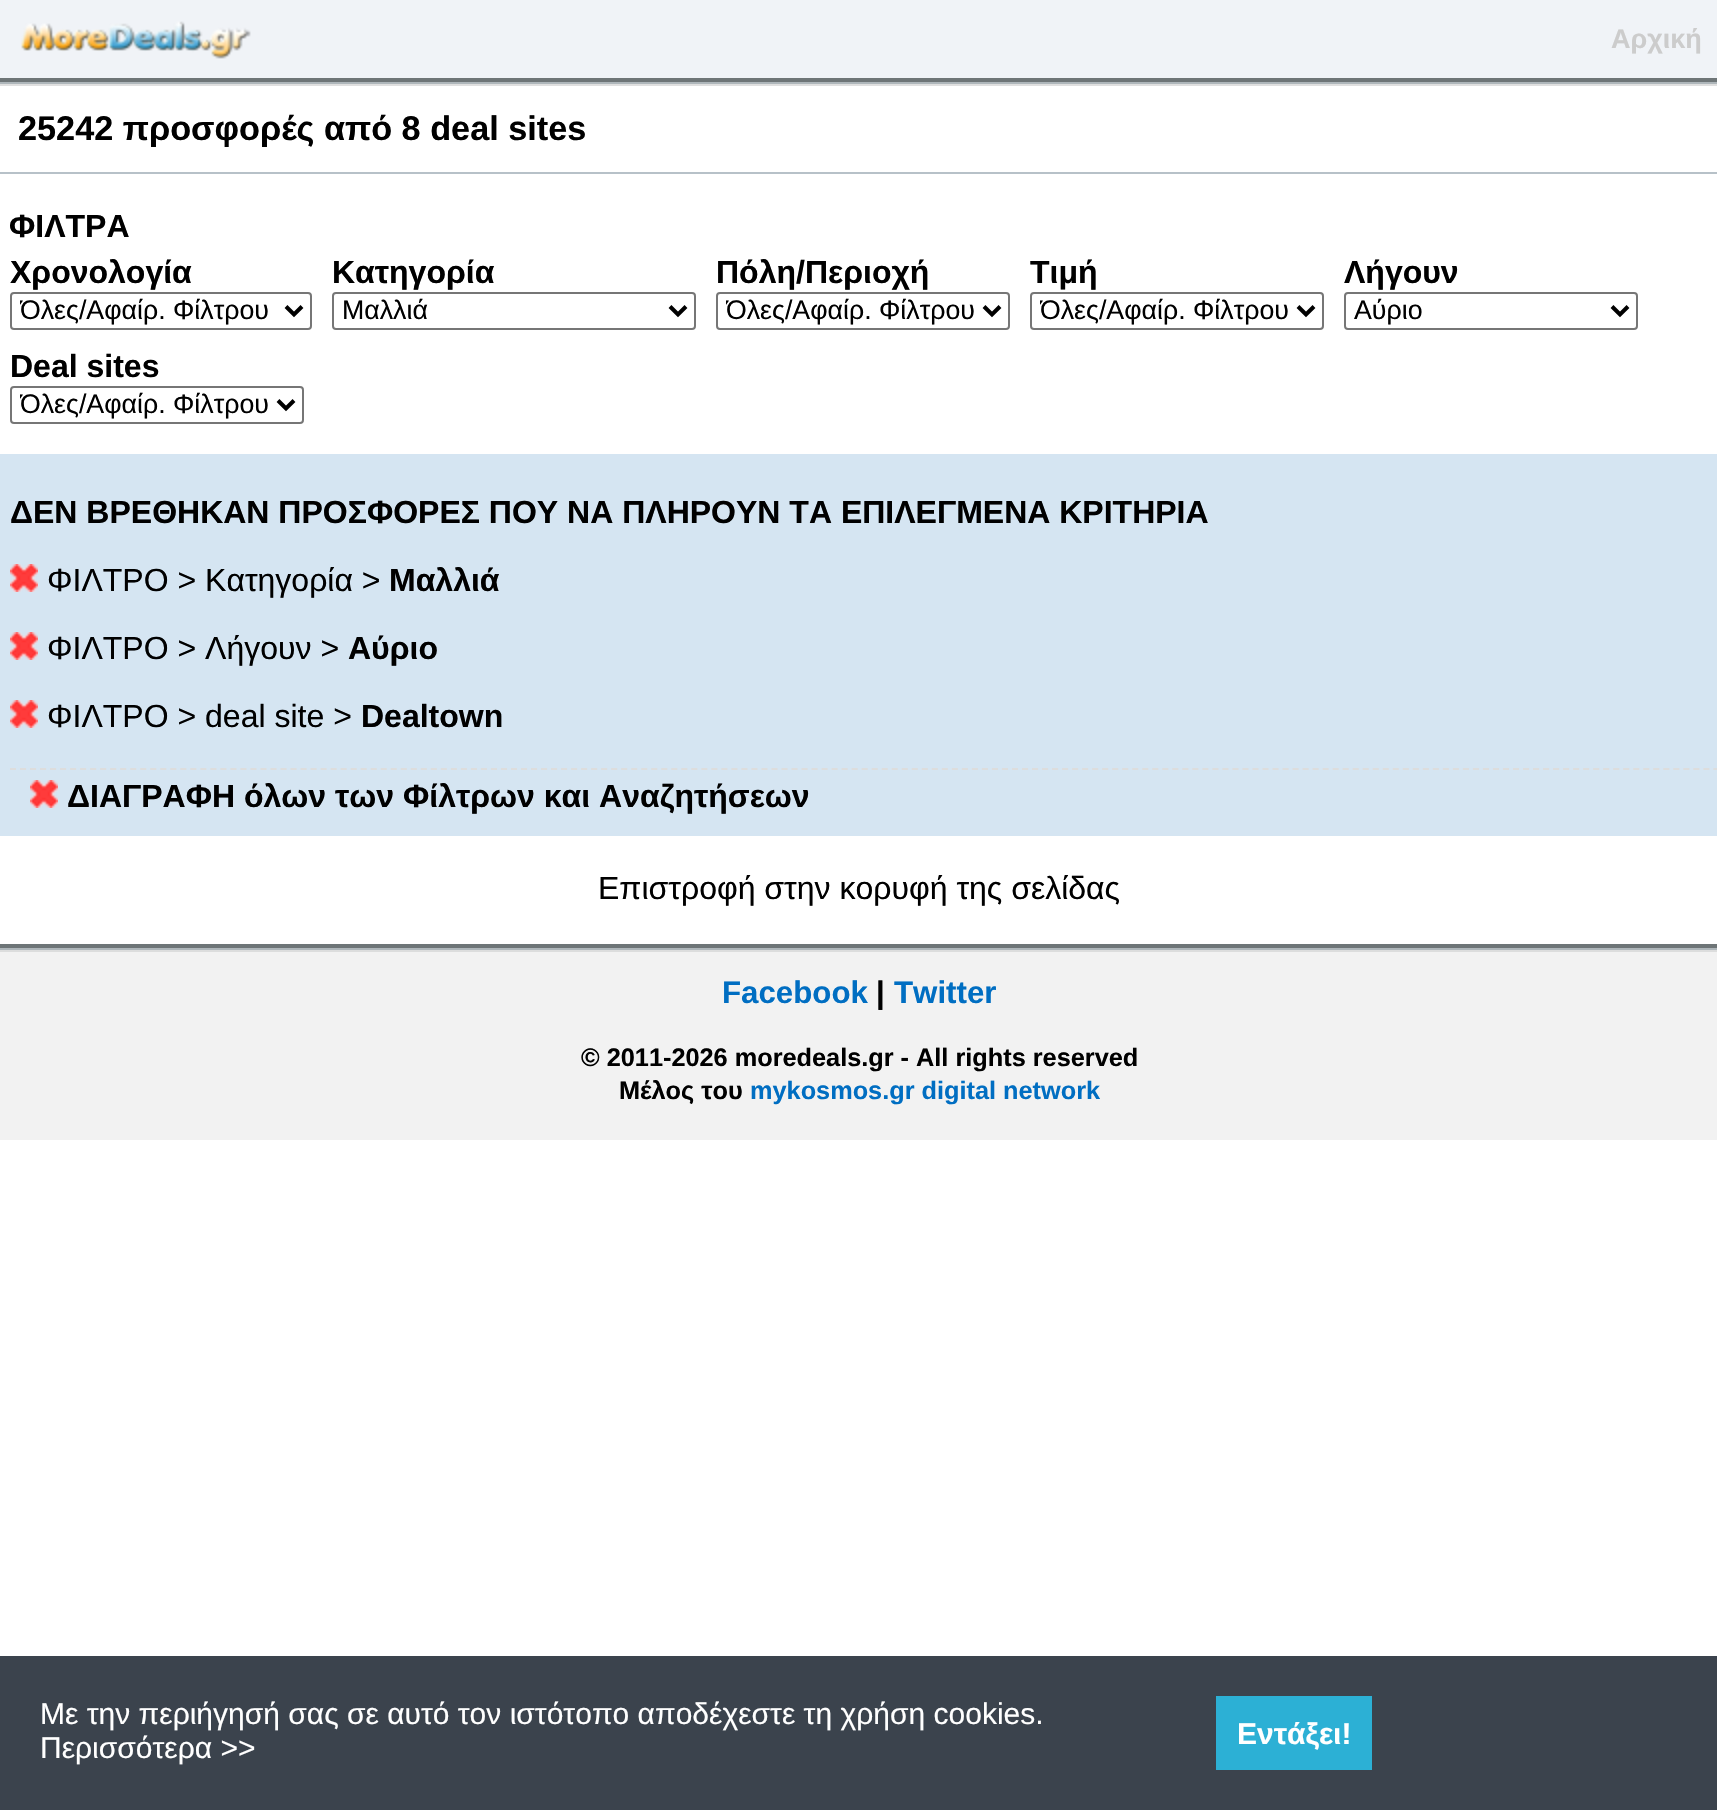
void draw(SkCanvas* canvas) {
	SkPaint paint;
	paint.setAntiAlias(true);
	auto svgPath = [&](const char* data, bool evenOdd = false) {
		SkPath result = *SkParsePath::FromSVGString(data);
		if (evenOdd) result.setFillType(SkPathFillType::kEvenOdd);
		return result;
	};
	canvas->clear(0xffffffff);
	paint.setColor(0xfff0f3f7);
	canvas->drawRect(SkRect::MakeXYWH(0, 0, 1717, 78), paint);
	canvas->drawImageRect(SkImages::DeferredFromEncodedData(SkData::MakeFromFileName("img1.png")), SkRect::MakeXYWH(21, 21, 230, 38), SkSamplingOptions());
	SkFont f1(fontMgr->matchFamilyStyle("Liberation Sans", SkFontStyle::Bold()), 27);
	f1.setSubpixel(true);
	paint.setColor(0xffcccccc);
	canvas->drawString("Αρχική", 1611, 48, f1, paint);
	paint.setColor(0xff6e7577);
	canvas->drawRect(SkRect::MakeXYWH(0, 78, 1717, 4), paint);
	paint.setColor(0xffaeb6ba);
	canvas->drawRect(SkRect::MakeXYWH(0, 82, 1717, 2), paint);
	paint.setColor(0xffdfdfdf);
	canvas->drawRect(SkRect::MakeXYWH(0, 84, 1717, 2), paint);
	paint.setColor(0xffb7c1c8);
	canvas->drawRect(SkRect::MakeXYWH(0, 172, 1717, 2), paint);
	SkFont f2(fontMgr->matchFamilyStyle("Liberation Sans", SkFontStyle::Bold()), 34.25);
	f2.setSubpixel(true);
	paint.setColor(0xff000000);
	canvas->drawString("25242 προσφορές από 8 deal sites", 18, 140, f2, paint);
	SkFont f3(fontMgr->matchFamilyStyle("Liberation Sans", SkFontStyle::Bold()), 32);
	f3.setSubpixel(true);
	canvas->drawString("ΦΙΛΤΡΑ", 9, 237, f3, paint);
	canvas->drawString("Χρονολογία", 10, 283, f3, paint);
	paint.setStroke(true);
	paint.setStrokeWidth(2);
	paint.setColor(0xff767676);
	canvas->drawRoundRect(SkRect::MakeXYWH(11, 293, 300, 36), 3, 3, paint);
	paint.setStrokeWidth(4);
	paint.setColor(0xff000000);
	canvas->drawPath(svgPath("M286 306.5L294 314.5L302 306.5"), paint);
	canvas->save();
	canvas->clipRect(SkRect::MakeXYWH(20, 294, 258, 34));
	SkFont f4(fontMgr->matchFamilyStyle("Liberation Sans", SkFontStyle::Normal()), 26.75);
	f4.setSubpixel(true);
	paint.setStroke(false);
	canvas->drawString("Όλες/Αφαίρ. Φίλτρου", 20, 319, f4, paint);
	canvas->restore();
	canvas->drawString("Κατηγορία", 332, 283, f3, paint);
	paint.setStroke(true);
	paint.setStrokeWidth(2);
	paint.setColor(0xff767676);
	canvas->drawRoundRect(SkRect::MakeXYWH(333, 293, 362, 36), 3, 3, paint);
	paint.setStrokeWidth(4);
	paint.setColor(0xff000000);
	canvas->drawPath(svgPath("M670 306.5L678 314.5L686 306.5"), paint);
	paint.setStroke(false);
	canvas->drawString("Μαλλιά", 342, 319, f4, paint);
	canvas->drawString("Πόλη/Περιοχή", 716, 283, f3, paint);
	paint.setStroke(true);
	paint.setStrokeWidth(2);
	paint.setColor(0xff767676);
	canvas->drawRoundRect(SkRect::MakeXYWH(717, 293, 292, 36), 3, 3, paint);
	paint.setStrokeWidth(4);
	paint.setColor(0xff000000);
	canvas->drawPath(svgPath("M984 306.5L992 314.5L1000 306.5"), paint);
	canvas->save();
	canvas->clipRect(SkRect::MakeXYWH(726, 294, 250, 34));
	paint.setStroke(false);
	canvas->drawString("Όλες/Αφαίρ. Φίλτρου", 726, 319, f4, paint);
	canvas->restore();
	canvas->drawString("Τιμή", 1030, 283, f3, paint);
	paint.setStroke(true);
	paint.setStrokeWidth(2);
	paint.setColor(0xff767676);
	canvas->drawRoundRect(SkRect::MakeXYWH(1031, 293, 292, 36), 3, 3, paint);
	paint.setStrokeWidth(4);
	paint.setColor(0xff000000);
	canvas->drawPath(svgPath("M1298 306.5L1306 314.5L1314 306.5"), paint);
	canvas->save();
	canvas->clipRect(SkRect::MakeXYWH(1040, 294, 250, 34));
	paint.setStroke(false);
	canvas->drawString("Όλες/Αφαίρ. Φίλτρου", 1040, 319, f4, paint);
	canvas->restore();
	canvas->drawString("Λήγουν", 1344, 283, f3, paint);
	paint.setStroke(true);
	paint.setStrokeWidth(2);
	paint.setColor(0xff767676);
	canvas->drawRoundRect(SkRect::MakeXYWH(1345, 293, 292, 36), 3, 3, paint);
	paint.setStrokeWidth(4);
	paint.setColor(0xff000000);
	canvas->drawPath(svgPath("M1612 306.5L1620 314.5L1628 306.5"), paint);
	paint.setStroke(false);
	canvas->drawString("Αύριο", 1354, 319, f4, paint);
	canvas->drawString("Deal sites", 10, 377, f3, paint);
	paint.setStroke(true);
	paint.setStrokeWidth(2);
	paint.setColor(0xff767676);
	canvas->drawRoundRect(SkRect::MakeXYWH(11, 387, 292, 36), 3, 3, paint);
	paint.setStrokeWidth(4);
	paint.setColor(0xff000000);
	canvas->drawPath(svgPath("M278 400.5L286 408.5L294 400.5"), paint);
	canvas->save();
	canvas->clipRect(SkRect::MakeXYWH(20, 388, 250, 34));
	paint.setStroke(false);
	canvas->drawString("Όλες/Αφαίρ. Φίλτρου", 20, 413, f4, paint);
	canvas->restore();
	paint.setColor(0xffd5e5f2);
	canvas->drawRect(SkRect::MakeXYWH(0, 454, 1717, 382), paint);
	paint.setColor(0xff000000);
	canvas->drawString("ΔΕΝ ΒΡΕΘΗΚΑΝ ΠΡΟΣΦΟΡΕΣ ΠΟΥ ΝΑ ΠΛΗΡΟΥΝ ΤΑ ΕΠΙΛΕΓΜΕΝΑ ΚΡΙΤΗΡΙΑ", 10, 523, f3, paint);
	canvas->drawImageRect(SkImages::DeferredFromEncodedData(SkData::MakeFromFileName("img2.png")), SkRect::MakeXYWH(10, 564, 28, 28), SkSamplingOptions());
	SkFont f5(fontMgr->matchFamilyStyle("Liberation Sans", SkFontStyle::Normal()), 32);
	f5.setSubpixel(true);
	canvas->drawString("ΦΙΛΤΡΟ > Κατηγορία >", 47, 591, f5, paint);
	canvas->drawString("Μαλλιά", 389, 591, f3, paint);
	canvas->drawImageRect(SkImages::DeferredFromEncodedData(SkData::MakeFromFileName("img2.png")), SkRect::MakeXYWH(10, 632, 28, 28), SkSamplingOptions());
	canvas->drawString("ΦΙΛΤΡΟ > Λήγουν >", 47, 659, f5, paint);
	canvas->drawString("Αύριο", 348, 659, f3, paint);
	canvas->drawImageRect(SkImages::DeferredFromEncodedData(SkData::MakeFromFileName("img2.png")), SkRect::MakeXYWH(10, 700, 28, 28), SkSamplingOptions());
	canvas->drawString("ΦΙΛΤΡΟ > deal site >", 47, 727, f5, paint);
	canvas->drawString("Dealtown", 361, 727, f3, paint);
	paint.setStroke(true);
	paint.setStrokeWidth(2);
	paint.setColor(0xffdddddd);
	paint.setPathEffect(SkDashPathEffect::Make({{6, 4.02f}}, 0));
	canvas->drawPath(svgPath("M10 769H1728"), paint);
	paint.setPathEffect(nullptr);
	canvas->drawImageRect(SkImages::DeferredFromEncodedData(SkData::MakeFromFileName("img2.png")), SkRect::MakeXYWH(30, 780, 28, 28), SkSamplingOptions());
	paint.setStroke(false);
	paint.setColor(0xff000000);
	canvas->drawString("ΔΙΑΓΡΑΦΗ όλων των Φίλτρων και Αναζητήσεων", 67, 807, f3, paint);
	canvas->drawString("Επιστροφή στην κορυφή της σελίδας", 598, 899, f5, paint);
	paint.setColor(0xff6e7577);
	canvas->drawRect(SkRect::MakeXYWH(0, 944, 1717, 4), paint);
	paint.setColor(0xffaeb6ba);
	canvas->drawRect(SkRect::MakeXYWH(0, 948, 1717, 2), paint);
	paint.setColor(0xfff2f2f2);
	canvas->drawRect(SkRect::MakeXYWH(0, 952, 1717, 188), paint);
	paint.setColor(0xffdcdddd);
	canvas->drawRect(SkRect::MakeXYWH(0, 950, 1717, 2), paint);
	SkFont f6(fontMgr->matchFamilyStyle("Liberation Sans", SkFontStyle::Bold()), 31.25);
	f6.setSubpixel(true);
	paint.setColor(0xff006ec2);
	canvas->drawString("Facebook", 722, 1003, f6, paint);
	paint.setColor(0xff000000);
	canvas->drawString("|", 876, 1003, f6, paint);
	paint.setColor(0xff006ec2);
	canvas->drawString("Twitter", 894, 1003, f6, paint);
	SkFont f7(fontMgr->matchFamilyStyle("Liberation Sans", SkFontStyle::Bold()), 25.3);
	f7.setSubpixel(true);
	paint.setColor(0xff000000);
	canvas->drawString("© 2011-2026 moredeals.gr - All rights reserved", 581, 1066, f7, paint);
	canvas->drawString("Μέλος του", 619, 1099, f7, paint);
	paint.setColor(0xff006ec2);
	canvas->drawString("mykosmos.gr digital network", 750, 1099, f7, paint);
	paint.setColor(0xff3b434d);
	canvas->drawRect(SkRect::MakeXYWH(0, 1656, 1717, 154), paint);
	SkFont f8(fontMgr->matchFamilyStyle("Liberation Sans", SkFontStyle::Normal()), 30);
	f8.setSubpixel(true);
	paint.setColor(0xffffffff);
	canvas->drawString("Με την περιήγησή σας σε αυτό τον ιστότοπο αποδέχεστε τη χρήση cookies.", 40, 1724, f8, paint);
	canvas->drawString("Περισσότερα >>", 40, 1758, f8, paint);
	paint.setColor(0xff2cb0d5);
	canvas->drawRect(SkRect::MakeXYWH(1216, 1696, 156, 74), paint);
	SkFont f9(fontMgr->matchFamilyStyle("Liberation Sans", SkFontStyle::Bold()), 30);
	f9.setSubpixel(true);
	paint.setColor(0xffffffff);
	canvas->drawString("Εντάξει!", 1237, 1744, f9, paint);
}
